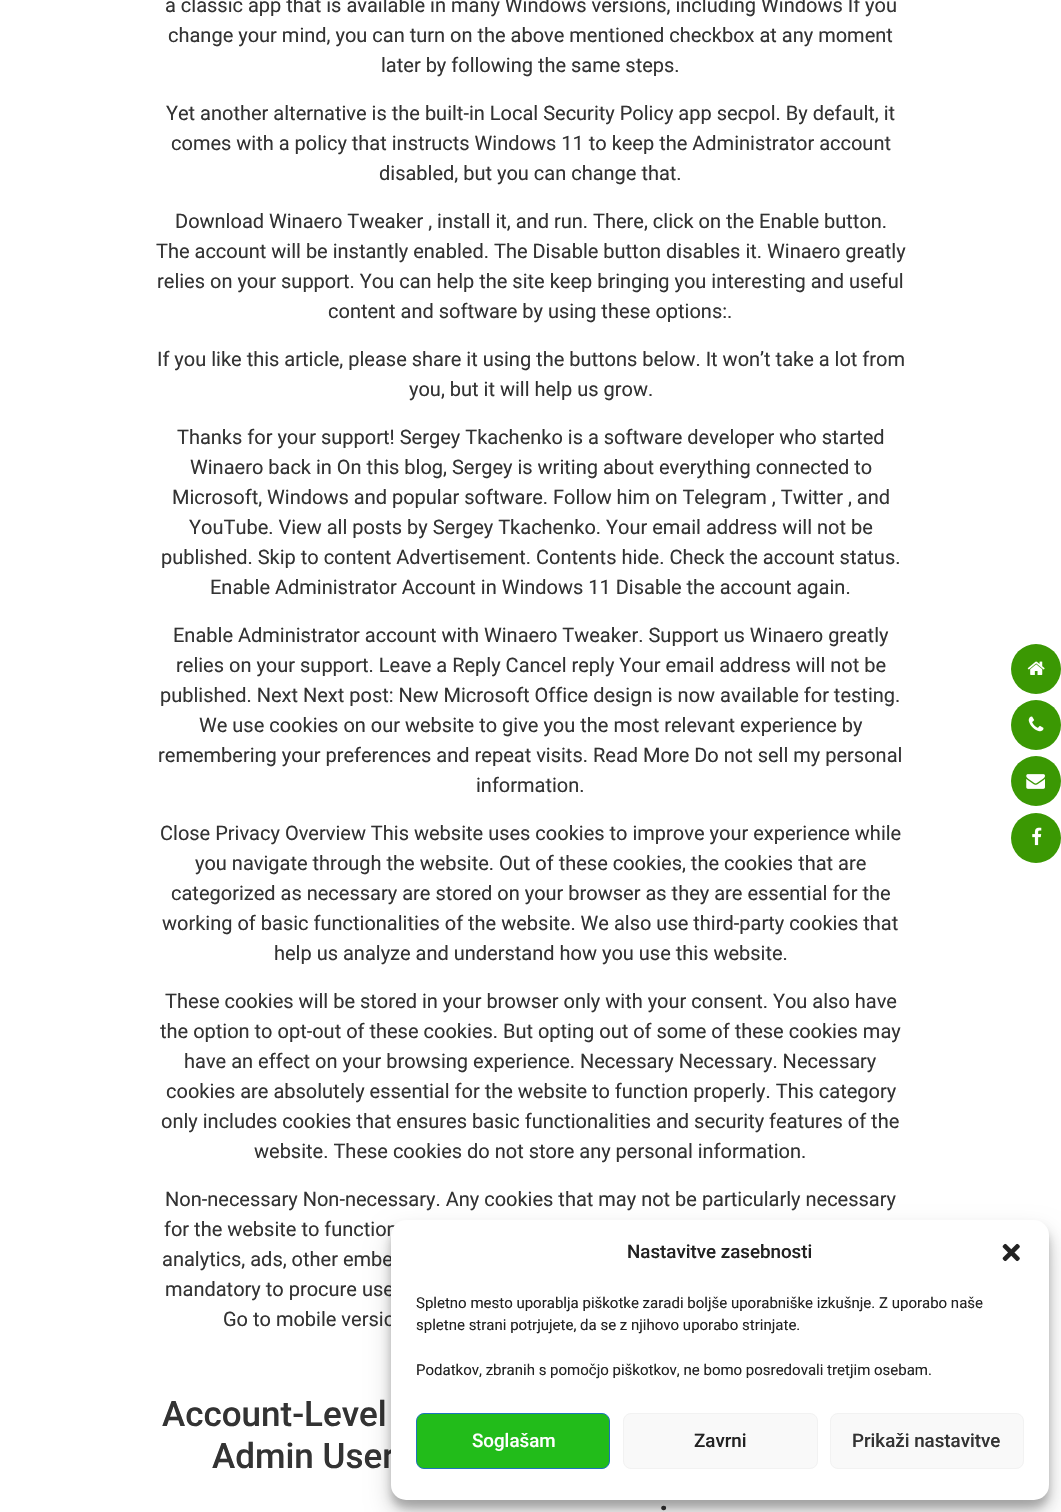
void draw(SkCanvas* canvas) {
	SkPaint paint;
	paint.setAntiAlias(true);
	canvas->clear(0xffffffff);
	SkFont f1(fontMgr->matchFamilyStyle("Roboto", SkFontStyle::Normal()), 20);
	f1.setSubpixel(true);
	paint.setColor(0xff333333);
	canvas->drawString("a classic app that is available in many Windows versions, including Windows If you", 165, 12, f1, paint);
	canvas->drawString("change your mind, you can turn on the above mentioned checkbox at any moment", 168, 42, f1, paint);
	canvas->drawString("later by following the same steps.", 381, 72, f1, paint);
	canvas->drawString("Yet another alternative is the built-in Local Security Policy app secpol. By default, it", 166, 120, f1, paint);
	canvas->drawString("comes with a policy that instructs Windows 11 to keep the Administrator account", 171, 150, f1, paint);
	canvas->drawString("disabled, but you can change that.", 379, 180, f1, paint);
	canvas->drawString("Download Winaero Tweaker , install it, and run. There, click on the Enable button.", 175, 228, f1, paint);
	canvas->drawString("The account will be instantly enabled. The Disable button disables it. Winaero greatly", 156, 258, f1, paint);
	canvas->drawString("relies on your support. You can help the site keep bringing you interesting and useful", 157, 288, f1, paint);
	canvas->drawString("content and software by using these options:.", 328, 318, f1, paint);
	canvas->drawString("If you like this article, please share it using the buttons below. It won’t take a lot from", 157, 366, f1, paint);
	canvas->drawString("you, but it will help us grow.", 409, 396, f1, paint);
	canvas->drawString("Thanks for your support! Sergey Tkachenko is a software developer who started", 177, 444, f1, paint);
	canvas->drawString("Winaero back in On this blog, Sergey is writing about everything connected to", 190, 474, f1, paint);
	canvas->drawString("Microsoft, Windows and popular software. Follow him on Telegram , Twitter , and", 172, 504, f1, paint);
	canvas->drawString("YouTube. View all posts by Sergey Tkachenko. Your email address will not be", 189, 534, f1, paint);
	canvas->drawString("published. Skip to content Advertisement. Contents hide. Check the account status.", 161, 564, f1, paint);
	canvas->drawString("Enable Administrator Account in Windows 11 Disable the account again.", 210, 594, f1, paint);
	canvas->drawString("Enable Administrator account with Winaero Tweaker. Support us Winaero greatly", 173, 642, f1, paint);
	canvas->drawString("relies on your support. Leave a Reply Cancel reply Your email address will not be", 176, 672, f1, paint);
	canvas->drawString("published. Next Next post: New Microsoft Office design is now available for testing.", 160, 702, f1, paint);
	canvas->drawString("We use cookies on our website to give you the most relevant experience by", 199, 732, f1, paint);
	canvas->drawString("remembering your preferences and repeat visits. Read More Do not sell my personal", 158, 762, f1, paint);
	canvas->drawString("information.", 476, 792, f1, paint);
	canvas->drawString("Close Privacy Overview This website uses cookies to improve your experience while", 160, 840, f1, paint);
	canvas->drawString("you navigate through the website. Out of these cookies, the cookies that are", 195, 870, f1, paint);
	canvas->drawString("categorized as necessary are stored on your browser as they are essential for the", 171, 900, f1, paint);
	canvas->drawString("working of basic functionalities of the website. We also use third-party cookies that", 162, 930, f1, paint);
	canvas->drawString("help us analyze and understand how you use this website.", 274, 960, f1, paint);
	canvas->drawString("These cookies will be stored in your browser only with your consent. You also have", 165, 1008, f1, paint);
	canvas->drawString("the option to opt-out of these cookies. But opting out of some of these cookies may", 160, 1038, f1, paint);
	canvas->drawString("have an effect on your browsing experience. Necessary Necessary. Necessary", 184, 1068, f1, paint);
	canvas->drawString("cookies are absolutely essential for the website to function properly. This category", 166, 1098, f1, paint);
	canvas->drawString("only includes cookies that ensures basic functionalities and security features of the", 161, 1128, f1, paint);
	canvas->drawString("website. These cookies do not store any personal information.", 254, 1158, f1, paint);
	canvas->drawString("Non-necessary Non-necessary. Any cookies that may not be particularly necessary", 165, 1206, f1, paint);
	canvas->drawString("for the website to function", 164, 1236, f1, paint);
	canvas->drawString("analytics, ads, other embe", 162, 1266, f1, paint);
	canvas->drawString("mandatory to procure use", 165, 1296, f1, paint);
	canvas->drawString("Go to mobile versio", 223, 1326, f1, paint);
	SkFont f2(fontMgr->matchFamilyStyle("Roboto", SkFontStyle(500, SkFontStyle::kNormal_Width, SkFontStyle::kUpright_Slant)), 35);
	f2.setSubpixel(true);
	canvas->drawString("Account-Level", 162, 1426, f2, paint);
	canvas->drawString("Admin User", 212, 1468, f2, paint);
	canvas->drawString(".", 659, 1510, f2, paint);
	paint.setColor(0xff3b9803);
	canvas->drawCircle(1036, 669, 25, paint);
	canvas->drawImageRect(SkImages::DeferredFromEncodedData(SkData::MakeFromFileName("img1.png")), SkRect::MakeXYWH(1027, 661, 18, 14), SkSamplingOptions());
	canvas->drawCircle(1036, 725, 25, paint);
	canvas->drawImageRect(SkImages::DeferredFromEncodedData(SkData::MakeFromFileName("img2.png")), SkRect::MakeXYWH(1028, 716, 16, 16), SkSamplingOptions());
	canvas->drawCircle(1036, 781, 25, paint);
	canvas->drawImageRect(SkImages::DeferredFromEncodedData(SkData::MakeFromFileName("img3.png")), SkRect::MakeXYWH(1026, 774, 19, 15), SkSamplingOptions());
	canvas->drawCircle(1036, 838, 25, paint);
	canvas->drawImageRect(SkImages::DeferredFromEncodedData(SkData::MakeFromFileName("img4.png")), SkRect::MakeXYWH(1032, 827, 10, 19), SkSamplingOptions());
	paint.setColor(0x3b000000);
	paint.setMaskFilter(SkMaskFilter::MakeBlur(kNormal_SkBlurStyle, 4));
	canvas->drawRoundRect(SkRect::MakeXYWH(391, 1228, 658, 280), 15, 15, paint);
	paint.setMaskFilter(nullptr);
	paint.setColor(0x30000000);
	paint.setMaskFilter(SkMaskFilter::MakeBlur(kNormal_SkBlurStyle, 12.5));
	canvas->drawRoundRect(SkRect::MakeXYWH(391, 1233, 658, 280), 15, 15, paint);
	paint.setMaskFilter(nullptr);
	paint.setColor(0xffffffff);
	canvas->drawRoundRect(SkRect::MakeXYWH(391, 1220, 658, 280), 15, 15, paint);
	SkFont f3(fontMgr->matchFamilyStyle("Roboto", SkFontStyle(500, SkFontStyle::kNormal_Width, SkFontStyle::kUpright_Slant)), 18.75);
	f3.setSubpixel(true);
	paint.setColor(0xff222222);
	canvas->drawString("Nastavitve zasebnosti", 627, 1258, f3, paint);
	canvas->drawImageRect(SkImages::DeferredFromEncodedData(SkData::MakeFromFileName("img5.png")), SkRect::MakeXYWH(1002, 1243, 18, 19), SkSamplingOptions());
	SkFont f4(fontMgr->matchFamilyStyle("Roboto", SkFontStyle::Normal()), 15);
	f4.setSubpixel(true);
	canvas->drawString("Spletno mesto uporablja piškotke zaradi boljše uporabniške izkušnje. Z uporabo naše", 416, 1308, f4, paint);
	canvas->drawString("spletne strani potrjujete, da se z njihovo uporabo strinjate.", 416, 1330, f4, paint);
	canvas->drawString("Podatkov, zbranih s pomočjo piškotkov, ne bomo posredovali tretjim osebam.", 416, 1375, f4, paint);
	paint.setColor(0xff22bc1a);
	canvas->drawRoundRect(SkRect::MakeXYWH(416.5, 1413.5, 193, 55), 7.5, 7.5, paint);
	paint.setStroke(true);
	paint.setStrokeWidth(1);
	paint.setColor(0xff1e73be);
	canvas->drawRoundRect(SkRect::MakeXYWH(416.5, 1413.5, 193, 55), 7.5, 7.5, paint);
	paint.setStroke(false);
	paint.setColor(0xffffffff);
	canvas->drawString("Soglašam", 472, 1447, f3, paint);
	paint.setColor(0xfff9f9f9);
	canvas->drawRoundRect(SkRect::MakeXYWH(623.5, 1413.5, 194, 55), 7.5, 7.5, paint);
	paint.setStroke(true);
	paint.setColor(0xfff2f2f2);
	canvas->drawRoundRect(SkRect::MakeXYWH(623.5, 1413.5, 194, 55), 7.5, 7.5, paint);
	paint.setStroke(false);
	paint.setColor(0xff222222);
	canvas->drawString("Zavrni", 694, 1447, f3, paint);
	paint.setColor(0xfff9f9f9);
	canvas->drawRoundRect(SkRect::MakeXYWH(830.5, 1413.5, 193, 55), 7.5, 7.5, paint);
	paint.setStroke(true);
	paint.setColor(0xfff2f2f2);
	canvas->drawRoundRect(SkRect::MakeXYWH(830.5, 1413.5, 193, 55), 7.5, 7.5, paint);
	paint.setStroke(false);
	paint.setColor(0xff333333);
	canvas->drawString("Prikaži nastavitve", 852, 1447, f3, paint);
}
